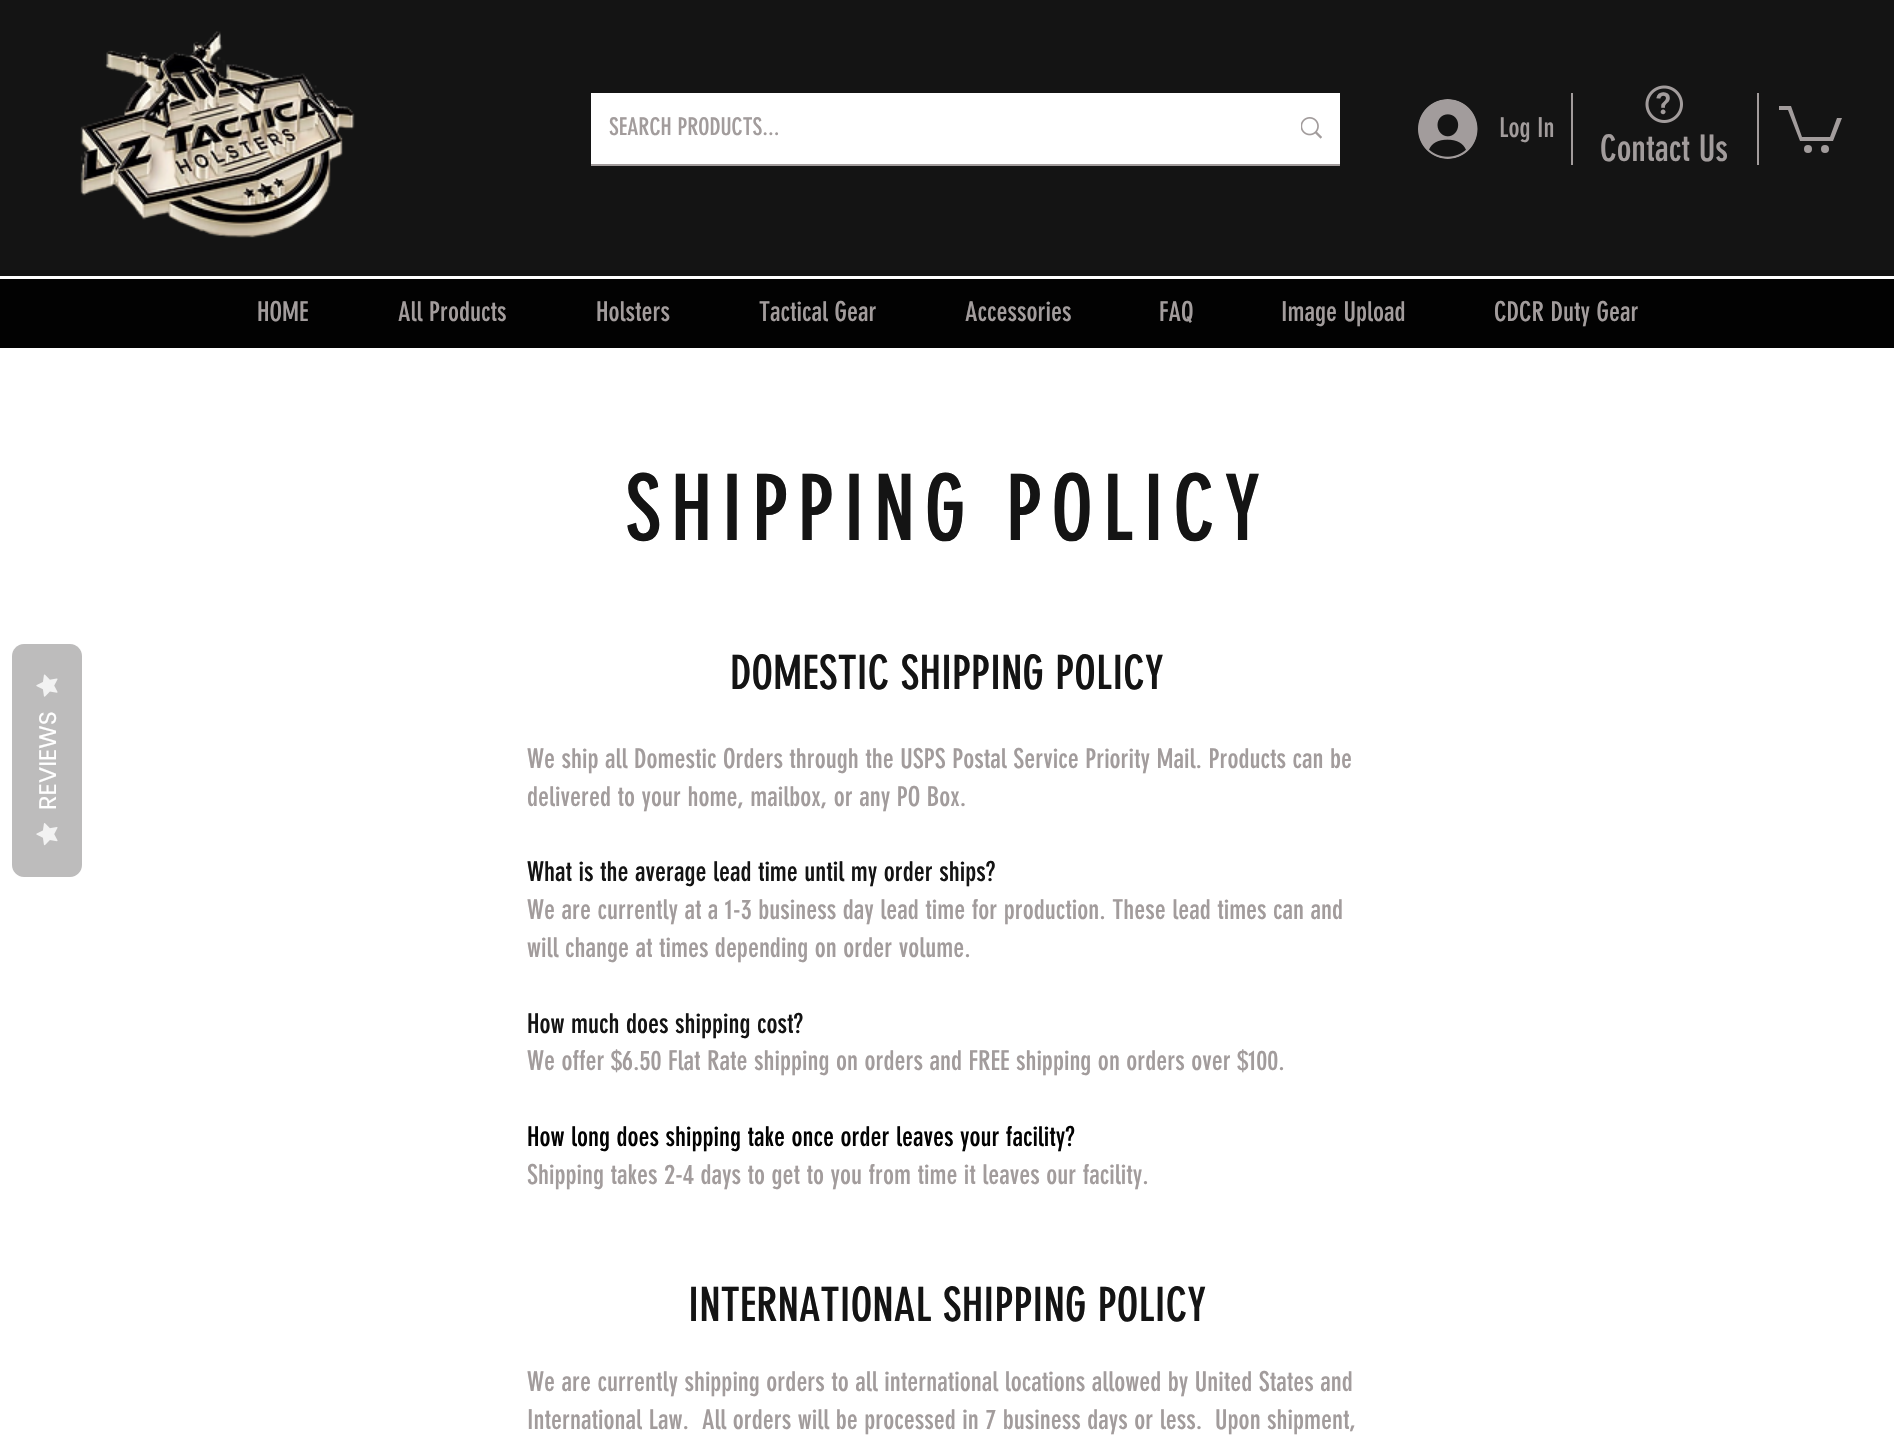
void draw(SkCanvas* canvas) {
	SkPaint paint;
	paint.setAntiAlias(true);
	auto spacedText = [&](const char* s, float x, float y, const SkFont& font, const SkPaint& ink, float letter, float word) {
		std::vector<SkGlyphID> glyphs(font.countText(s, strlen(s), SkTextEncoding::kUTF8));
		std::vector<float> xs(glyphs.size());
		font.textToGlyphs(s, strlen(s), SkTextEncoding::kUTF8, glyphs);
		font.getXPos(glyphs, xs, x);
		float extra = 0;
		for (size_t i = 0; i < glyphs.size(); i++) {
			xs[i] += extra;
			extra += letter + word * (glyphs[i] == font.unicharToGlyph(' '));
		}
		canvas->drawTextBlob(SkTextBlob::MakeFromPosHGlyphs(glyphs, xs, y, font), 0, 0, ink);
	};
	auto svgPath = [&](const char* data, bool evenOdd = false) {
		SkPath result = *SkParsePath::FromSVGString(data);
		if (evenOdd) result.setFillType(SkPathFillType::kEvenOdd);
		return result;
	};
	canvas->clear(0xffffffff);
	paint.setColor(0xffbdbcbc);
	canvas->drawPath(svgPath("M12 865V656C12 650 17 644 24 644H70C77 644 82 650 82 656V865C82 871 77 877 70 877H24C17 877 12 871 12 865Z"), paint);
	canvas->drawImageRect(SkImages::DeferredFromEncodedData(SkData::MakeFromFileName("img1.png")), SkRect::MakeXYWH(36, 674, 22, 23), SkSamplingOptions());
	SkFont f1(fontMgr->matchFamilyStyle("Poppins", SkFontStyle::Normal()), 24);
	f1.setSubpixel(true);
	paint.setColor(0xffffffff);
	canvas->save();
	canvas->rotate(-90, 56, 810);
	canvas->drawString("REVIEWS", 56, 810, f1, paint);
	canvas->restore();
	canvas->drawImageRect(SkImages::DeferredFromEncodedData(SkData::MakeFromFileName("img2.png")), SkRect::MakeXYWH(36, 823, 22, 23), SkSamplingOptions());
	paint.setColor(0xff141414);
	canvas->drawRect(SkRect::MakeXYWH(0, 0, 1894, 276), paint);
	canvas->drawImageRect(SkImages::DeferredFromEncodedData(SkData::MakeFromFileName("img3.png")), SkRect::MakeXYWH(80, 31, 275, 207), SkSamplingOptions());
	paint.setColor(0xffa29c9c);
	canvas->drawRect(SkRect::MakeXYWH(591, 164, 749, 2), paint);
	paint.setColor(0xffffffff);
	canvas->drawRect(SkRect::MakeXYWH(591, 93, 749, 71), paint);
	SkFont f2(fontMgr->matchFamilyStyle("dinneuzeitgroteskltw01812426", SkFontStyle::Normal()), 24);
	f2.setSubpixel(true);
	paint.setColor(0xffa29c9c);
	canvas->drawString("SEARCH PRODUCTS...", 609, 135, f2, paint);
	canvas->drawImageRect(SkImages::DeferredFromEncodedData(SkData::MakeFromFileName("img4.png")), SkRect::MakeXYWH(1301, 117, 21, 22), SkSamplingOptions());
	canvas->drawImageRect(SkImages::DeferredFromEncodedData(SkData::MakeFromFileName("img5.png")), SkRect::MakeXYWH(1418, 99, 60, 60), SkSamplingOptions());
	SkFont f3(fontMgr->matchFamilyStyle("dinneuzeitgroteskltw01812426", SkFontStyle::Normal()), 27);
	f3.setSubpixel(true);
	canvas->drawString("Log In", 1499, 137, f3, paint);
	canvas->drawRect(SkRect::MakeXYWH(1571, 93, 2, 72), paint);
	canvas->drawImageRect(SkImages::DeferredFromEncodedData(SkData::MakeFromFileName("img6.png")), SkRect::MakeXYWH(1645, 85, 38, 38), SkSamplingOptions());
	SkFont f4(fontMgr->matchFamilyStyle("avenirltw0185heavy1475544", SkFontStyle(900, SkFontStyle::kNormal_Width, SkFontStyle::kUpright_Slant)), 30);
	f4.setSubpixel(true);
	spacedText("?", 1655, 114, f4, paint, 6, 0);
	canvas->drawRect(SkRect::MakeXYWH(1757, 93, 2, 72), paint);
	canvas->drawPath(svgPath("M1842 118L1833 141H1800L1788 110H1779V106H1791L1802 137H1830L1837 118"), paint);
	canvas->drawCircle(1825, 149, 4, paint);
	canvas->drawCircle(1808, 149, 4, paint);
	SkFont f5(fontMgr->matchFamilyStyle("dinneuzeitgroteskltw01812426", SkFontStyle::Normal()), 36);
	f5.setSubpixel(true);
	canvas->drawString("Contact Us", 1600, 161, f5, paint);
	paint.setColor(0xff020202);
	canvas->drawRect(SkRect::MakeXYWH(0, 279, 1894, 69), paint);
	paint.setColor(0xffa29c9c);
	canvas->drawString("HOME", 257, 321, f3, paint);
	canvas->drawString("All Products", 398, 321, f3, paint);
	canvas->drawString("Holsters", 596, 321, f3, paint);
	canvas->drawString("Tactical Gear", 759, 321, f3, paint);
	canvas->drawString("Accessories", 965, 321, f3, paint);
	canvas->drawString("FAQ", 1159, 321, f3, paint);
	canvas->drawString("Image Upload", 1281, 321, f3, paint);
	canvas->drawString("CDCR Duty Gear", 1494, 321, f3, paint);
	SkFont f6(fontMgr->matchFamilyStyle("dinneuzeitgroteskltw01812426", SkFontStyle::Normal()), 90);
	f6.setSubpixel(true);
	paint.setColor(0xff141414);
	spacedText("SHIPPING POLICY", 625, 540, f6, paint, 9, 0);
	SkFont f7(fontMgr->matchFamilyStyle("dinneuzeitgroteskltw01812426", SkFontStyle::Normal()), 46.5);
	f7.setSubpixel(true);
	canvas->drawString("DOMESTIC SHIPPING POLICY", 730, 689, f7, paint);
	paint.setColor(0xffa29c9c);
	canvas->drawString("We ship all Domestic Orders through the USPS Postal Service Priority Mail. Products can be", 527, 768, f3, paint);
	canvas->drawString("delivered to your home, mailbox, or any PO Box.", 527, 806, f3, paint);
	paint.setColor(0xff141414);
	canvas->drawString("What is the average lead time until my order ships?", 527, 881, f3, paint);
	paint.setColor(0xffa29c9c);
	canvas->drawString("We are currently at a 1-3 business day lead time for production. These lead times can and", 527, 919, f3, paint);
	canvas->drawString("will change at times depending on order volume.", 527, 957, f3, paint);
	paint.setColor(0xff141414);
	canvas->drawString("How much does shipping cost?", 527, 1033, f3, paint);
	paint.setColor(0xffa29c9c);
	canvas->drawString("We offer $6.50 Flat Rate shipping on orders and FREE shipping on orders over $100.", 527, 1070, f3, paint);
	paint.setColor(0xff020202);
	canvas->drawString("How long does shipping take once order leaves your facility?", 527, 1146, f3, paint);
	paint.setColor(0xffa29c9c);
	canvas->drawString("Shipping takes 2-4 days to get to you from time it leaves our facility.", 527, 1184, f3, paint);
	paint.setColor(0xff141414);
	canvas->drawString("INTERNATIONAL SHIPPING POLICY", 688, 1321, f7, paint);
	paint.setColor(0xffa29c9c);
	canvas->drawString("We are currently shipping orders to all international locations allowed by United States and", 527, 1391, f3, paint);
	canvas->drawString("International Law.  All orders will be processed in 7 business days or less.  Upon shipment,", 527, 1429, f3, paint);
}
